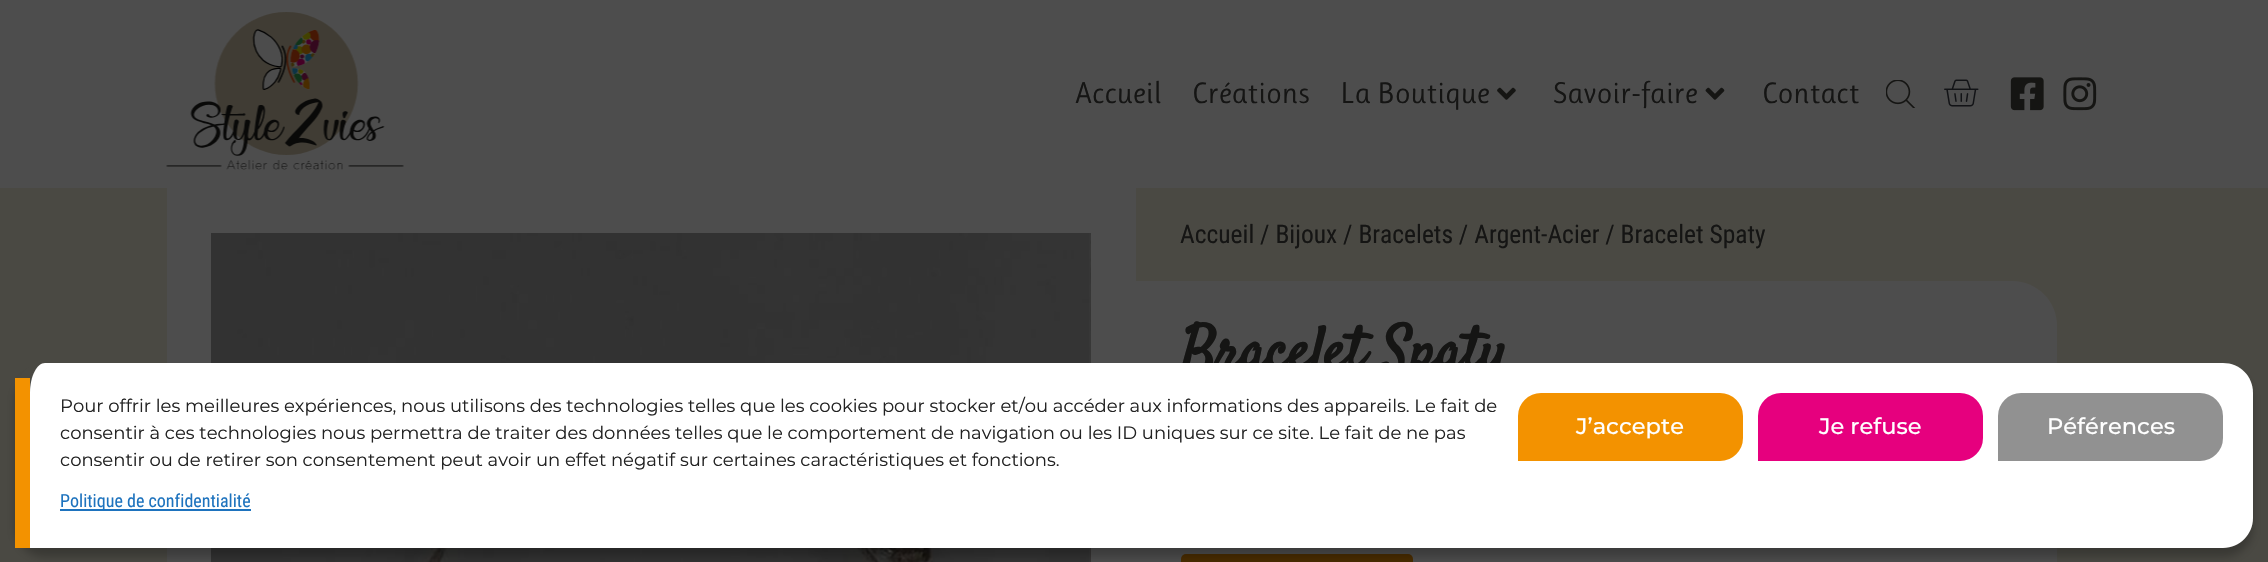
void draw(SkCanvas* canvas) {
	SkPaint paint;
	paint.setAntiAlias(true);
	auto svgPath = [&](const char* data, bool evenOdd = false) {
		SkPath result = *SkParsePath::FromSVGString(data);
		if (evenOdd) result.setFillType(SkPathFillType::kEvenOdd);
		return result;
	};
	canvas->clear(0xff4a4943);
	paint.setColor(0xff4d4d4d);
	canvas->drawRect(SkRect::MakeXYWH(0, 0, 2268, 188), paint);
	canvas->drawImageRect(SkImages::DeferredFromEncodedData(SkData::MakeFromFileName("img1.png")), SkRect::MakeXYWH(166, 12, 238, 158), SkSamplingOptions());
	SkFont f1(fontMgr->matchFamilyStyle("Ruluko", SkFontStyle::Normal()), 30);
	f1.setSubpixel(true);
	paint.setColor(0xff151514);
	canvas->drawString("Accueil", 1075, 103, f1, paint);
	canvas->drawString("Créations", 1192, 103, f1, paint);
	canvas->drawString("La Boutique", 1340, 103, f1, paint);
	canvas->drawImageRect(SkImages::DeferredFromEncodedData(SkData::MakeFromFileName("img2.png")), SkRect::MakeXYWH(1497, 87, 19, 13), SkSamplingOptions());
	canvas->drawString("Savoir-faire", 1553, 103, f1, paint);
	canvas->drawImageRect(SkImages::DeferredFromEncodedData(SkData::MakeFromFileName("img3.png")), SkRect::MakeXYWH(1705, 87, 20, 13), SkSamplingOptions());
	canvas->drawString("Contact", 1762, 103, f1, paint);
	canvas->drawImageRect(SkImages::DeferredFromEncodedData(SkData::MakeFromFileName("img4.png")), SkRect::MakeXYWH(1886, 80, 30, 28), SkSamplingOptions());
	canvas->drawImageRect(SkImages::DeferredFromEncodedData(SkData::MakeFromFileName("img5.png")), SkRect::MakeXYWH(1944, 79, 35, 28), SkSamplingOptions());
	canvas->drawImageRect(SkImages::DeferredFromEncodedData(SkData::MakeFromFileName("img6.png")), SkRect::MakeXYWH(2010, 77, 34, 34), SkSamplingOptions());
	canvas->drawImageRect(SkImages::DeferredFromEncodedData(SkData::MakeFromFileName("img7.png")), SkRect::MakeXYWH(2063, 77, 34, 34), SkSamplingOptions());
	paint.setColor(0xff4d4d4d);
	canvas->drawRect(SkRect::MakeXYWH(167, 188, 969, 374), paint);
	canvas->drawImageRect(SkImages::DeferredFromEncodedData(SkData::MakeFromFileName("img9.png")), SkRect::MakeXYWH(1090, 233, 1, 329), SkSamplingOptions());
	canvas->drawImageRect(SkImages::DeferredFromEncodedData(SkData::MakeFromFileName("img8.png")), SkRect::MakeXYWH(211, 233, 880, 329), SkSamplingOptions());
	SkFont f2(fontMgr->matchFamilyStyle("Roboto Condensed", SkFontStyle::Normal()), 25.5);
	f2.setSubpixel(true);
	paint.setColor(0xff151514);
	canvas->drawString("Accueil / Bijoux / Bracelets / Argent-Acier / Bracelet Spaty", 1180, 243, f2, paint);
	paint.setColor(0xff4d4d4d);
	canvas->drawPath(svgPath("M1136 281H2012C2037 281 2057 301 2057 326V562C2057 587 2037 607 2012 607H1136Z"), paint);
	SkFont f3(fontMgr->matchFamilyStyle("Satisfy", SkFontStyle::Bold()), 60);
	f3.setSubpixel(true);
	paint.setColor(0xff151514);
	canvas->drawString("Bracelet Spaty", 1180, 368, f3, paint);
	paint.setColor(0xff492c00);
	canvas->drawRoundRect(SkRect::MakeXYWH(1181, 554, 232, 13), 5, 5, paint);
	canvas->save();
	canvas->clipPath(svgPath("M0 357H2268V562H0ZM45 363H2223C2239.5 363 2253 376.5 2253 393V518C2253 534.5 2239.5 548 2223 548H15V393C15 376.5 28.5 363 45 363Z", true), true);
	paint.setColor(0x3b000000);
	paint.setMaskFilter(SkMaskFilter::MakeBlur(kNormal_SkBlurStyle, 4.5));
	canvas->drawRoundRect(SkRect::MakeXYWH(15, 372, 2238, 185), 30, 30, paint);
	paint.setMaskFilter(nullptr);
	canvas->restore();
	paint.setColor(0xffffffff);
	canvas->drawPath(svgPath("M45 363H2223C2240 363 2253 376 2253 393V518C2253 534 2240 548 2223 548H30V393C30 376 37 363 45 363Z"), paint);
	paint.setColor(0xfff39200);
	canvas->drawRect(SkRect::MakeXYWH(15, 378, 15, 170), paint);
	SkFont f4(fontMgr->matchFamilyStyle("Montserrat", SkFontStyle::Normal()), 18);
	f4.setSubpixel(true);
	paint.setColor(0xff222222);
	canvas->drawString("Pour offrir les meilleures expériences, nous utilisons des technologies telles que les cookies pour stocker et/ou accéder aux informations des appareils. Le fait de", 60, 412, f4, paint);
	canvas->drawString("consentir à ces technologies nous permettra de traiter des données telles que le comportement de navigation ou les ID uniques sur ce site. Le fait de ne pas", 60, 439, f4, paint);
	canvas->drawString("consentir ou de retirer son consentement peut avoir un effet négatif sur certaines caractéristiques et fonctions.", 60, 466, f4, paint);
	paint.setColor(0xfff39200);
	canvas->drawPath(svgPath("M1541 394H1720C1732 394 1742 404 1742 416V438C1742 450 1732 460 1720 460H1519V416C1519 404 1529 394 1541 394Z"), paint);
	paint.setStroke(true);
	paint.setStrokeWidth(2);
	canvas->drawPath(svgPath("M1541 394H1720C1732 394 1742 404 1742 416V438C1742 450 1732 460 1720 460H1519V416C1519 404 1529 394 1541 394Z"), paint);
	SkFont f5(fontMgr->matchFamilyStyle("Montserrat", SkFontStyle(500, SkFontStyle::kNormal_Width, SkFontStyle::kUpright_Slant)), 22.5);
	f5.setSubpixel(true);
	paint.setStroke(false);
	paint.setColor(0xffffffff);
	canvas->drawString("J’accepte", 1576, 434, f5, paint);
	paint.setColor(0xffe6007e);
	canvas->drawPath(svgPath("M1781 394H1960C1972 394 1982 404 1982 416V438C1982 450 1972 460 1960 460H1759V416C1759 404 1769 394 1781 394Z"), paint);
	paint.setStroke(true);
	canvas->drawPath(svgPath("M1781 394H1960C1972 394 1982 404 1982 416V438C1982 450 1972 460 1960 460H1759V416C1759 404 1769 394 1781 394Z"), paint);
	paint.setStroke(false);
	paint.setColor(0xffffffff);
	canvas->drawString("Je refuse", 1819, 434, f5, paint);
	paint.setColor(0xff919191);
	canvas->drawPath(svgPath("M2021 394H2200C2212 394 2222 404 2222 416V438C2222 450 2212 460 2200 460H1999V416C1999 404 2009 394 2021 394Z"), paint);
	paint.setStroke(true);
	canvas->drawPath(svgPath("M2021 394H2200C2212 394 2222 404 2222 416V438C2222 450 2212 460 2200 460H1999V416C1999 404 2009 394 2021 394Z"), paint);
	paint.setStroke(false);
	paint.setColor(0xffffffff);
	canvas->drawString("Péférences", 2047, 434, f5, paint);
	paint.setColor(0xff1e73be);
	canvas->drawRect(SkRect::MakeXYWH(60, 509, 191, 2), paint);
	SkFont f6(fontMgr->matchFamilyStyle("Roboto Condensed", SkFontStyle::Normal()), 18);
	f6.setSubpixel(true);
	canvas->drawString("Politique de confidentialité", 60, 507, f6, paint);
}
